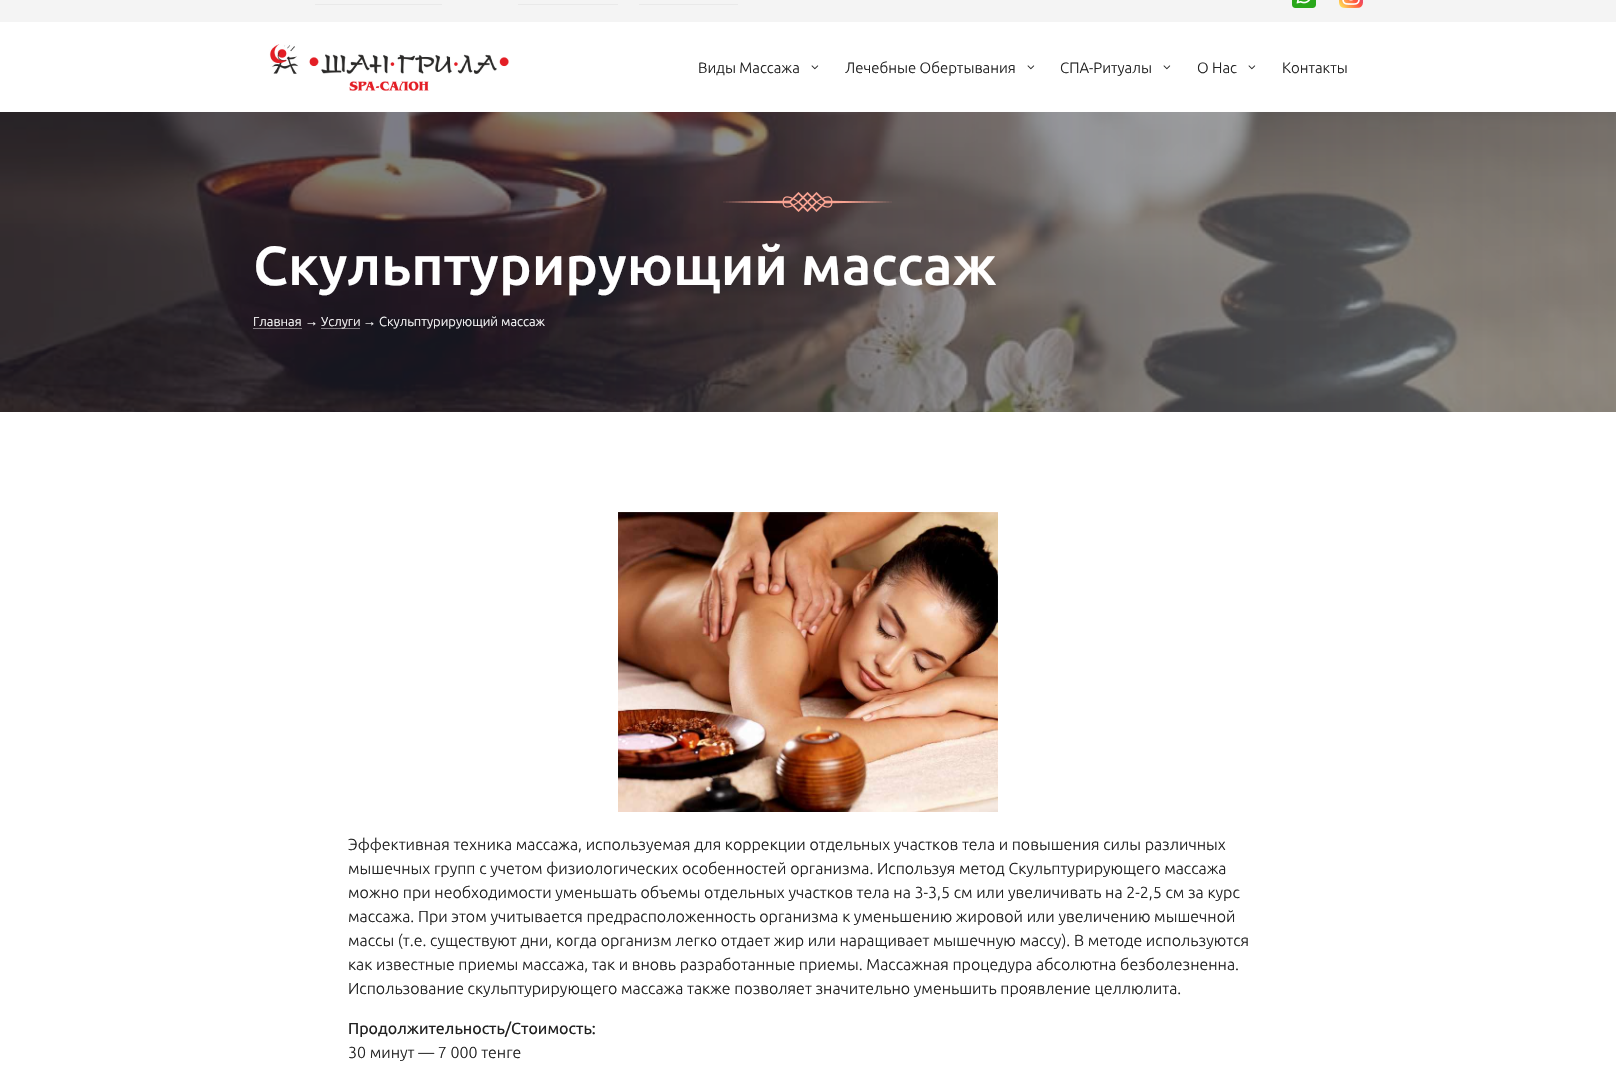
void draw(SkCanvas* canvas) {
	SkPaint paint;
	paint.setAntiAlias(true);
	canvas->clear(0xffffffff);
	paint.setColor(0xfff4f4f4);
	canvas->drawRect(SkRect::MakeXYWH(0, 0, 1616, 22), paint);
	paint.setColor(0xffe9e9e9);
	canvas->drawRect(SkRect::MakeXYWH(315, 4, 127, 1), paint);
	canvas->drawRect(SkRect::MakeXYWH(518, 4, 100, 1), paint);
	canvas->drawRect(SkRect::MakeXYWH(639, 4, 99, 1), paint);
	canvas->drawImageRect(SkImages::DeferredFromEncodedData(SkData::MakeFromFileName("img1.png")), SkRect::MakeXYWH(1292, 0, 24, 8), SkSamplingOptions());
	canvas->drawImageRect(SkImages::DeferredFromEncodedData(SkData::MakeFromFileName("img2.png")), SkRect::MakeXYWH(1339, 0, 24, 8), SkSamplingOptions());
	canvas->drawImageRect(SkImages::DeferredFromEncodedData(SkData::MakeFromFileName("img3.png")), SkRect::MakeXYWH(269, 44, 240, 47), SkSamplingOptions());
	SkFont f1(fontMgr->matchFamilyStyle("Ubuntu", SkFontStyle(300, SkFontStyle::kNormal_Width, SkFontStyle::kUpright_Slant)), 15);
	f1.setSubpixel(true);
	paint.setColor(0xff212121);
	canvas->drawString("Виды Массажа", 698, 73, f1, paint);
	canvas->drawImageRect(SkImages::DeferredFromEncodedData(SkData::MakeFromFileName("img4.png")), SkRect::MakeXYWH(811, 65, 8, 5), SkSamplingOptions());
	canvas->drawString("Лечебные Обертывания", 845, 73, f1, paint);
	canvas->drawImageRect(SkImages::DeferredFromEncodedData(SkData::MakeFromFileName("img4.png")), SkRect::MakeXYWH(1027, 65, 8, 5), SkSamplingOptions());
	canvas->drawString("СПА-Ритуалы", 1060, 73, f1, paint);
	canvas->drawImageRect(SkImages::DeferredFromEncodedData(SkData::MakeFromFileName("img4.png")), SkRect::MakeXYWH(1163, 65, 8, 5), SkSamplingOptions());
	canvas->drawString("О Нас", 1197, 73, f1, paint);
	canvas->drawImageRect(SkImages::DeferredFromEncodedData(SkData::MakeFromFileName("img4.png")), SkRect::MakeXYWH(1248, 65, 8, 5), SkSamplingOptions());
	canvas->drawString("Контакты", 1282, 73, f1, paint);
	canvas->drawImageRect(SkImages::DeferredFromEncodedData(SkData::MakeFromFileName("img5.png")), SkRect::MakeXYWH(0, 112, 1616, 300), SkSamplingOptions());
	canvas->drawImageRect(SkImages::DeferredFromEncodedData(SkData::MakeFromFileName("img6.png")), SkRect::MakeXYWH(723, 192, 169, 20), SkSamplingOptions());
	SkFont f2(fontMgr->matchFamilyStyle("Ubuntu", SkFontStyle(500, SkFontStyle::kNormal_Width, SkFontStyle::kUpright_Slant)), 55);
	f2.setSubpixel(true);
	paint.setColor(0xffffffff);
	canvas->drawString("Скульптурирующий массаж", 253, 285, f2, paint);
	SkFont f3(fontMgr->matchFamilyStyle("Ubuntu", SkFontStyle(300, SkFontStyle::kNormal_Width, SkFontStyle::kUpright_Slant)), 13);
	f3.setSubpixel(true);
	canvas->drawString("Главная", 253, 326, f3, paint);
	paint.setColor(0xff837d83);
	canvas->drawRect(SkRect::MakeXYWH(253, 328, 49, 1), paint);
	SkFont f4(fontMgr->matchFamilyStyle("Liberation Sans", SkFontStyle::Normal()), 13);
	f4.setSubpixel(true);
	paint.setColor(0xffffffff);
	canvas->drawString("→", 305, 326, f4, paint);
	paint.setColor(0x70ffffff);
	canvas->drawRect(SkRect::MakeXYWH(321, 328, 39, 1), paint);
	paint.setColor(0xffffffff);
	canvas->drawString("Услуги", 321, 326, f3, paint);
	canvas->drawString("→", 363, 326, f4, paint);
	canvas->drawString("Скульптурирующий массаж", 379, 326, f3, paint);
	canvas->drawImageRect(SkImages::DeferredFromEncodedData(SkData::MakeFromFileName("img7.png")), SkRect::MakeXYWH(618, 512, 380, 300), SkSamplingOptions());
	SkFont f5(fontMgr->matchFamilyStyle("Ubuntu", SkFontStyle(300, SkFontStyle::kNormal_Width, SkFontStyle::kUpright_Slant)), 16);
	f5.setSubpixel(true);
	paint.setColor(0xff212121);
	canvas->drawString("Эффективная техника массажа, используемая для коррекции отдельных участков тела и повышения силы различных", 348, 850, f5, paint);
	canvas->drawString("мышечных групп с учетом физиологических особенностей организма. Используя метод Скульптурирующего массажа", 348, 874, f5, paint);
	canvas->drawString("можно при необходимости уменьшать объемы отдельных участков тела на 3-3,5 см или увеличивать на 2-2,5 см за курс", 348, 898, f5, paint);
	canvas->drawString("массажа. При этом учитывается предрасположенность организма к уменьшению жировой или увеличению мышечной", 348, 922, f5, paint);
	canvas->drawString("массы (т.е. существуют дни, когда организм легко отдает жир или наращивает мышечную массу). В методе используются", 348, 946, f5, paint);
	canvas->drawString("как известные приемы массажа, так и вновь разработанные приемы. Массажная процедура абсолютна безболезненна.", 348, 970, f5, paint);
	canvas->drawString("Использование скульптурирующего массажа также позволяет значительно уменьшить проявление целлюлита.", 348, 994, f5, paint);
	SkFont f6(fontMgr->matchFamilyStyle("Ubuntu", SkFontStyle::Normal()), 16);
	f6.setSubpixel(true);
	canvas->drawString("Продолжительность/Стоимость:", 348, 1034, f6, paint);
	canvas->drawString("30 минут — 7 000 тенге", 348, 1058, f5, paint);
}
